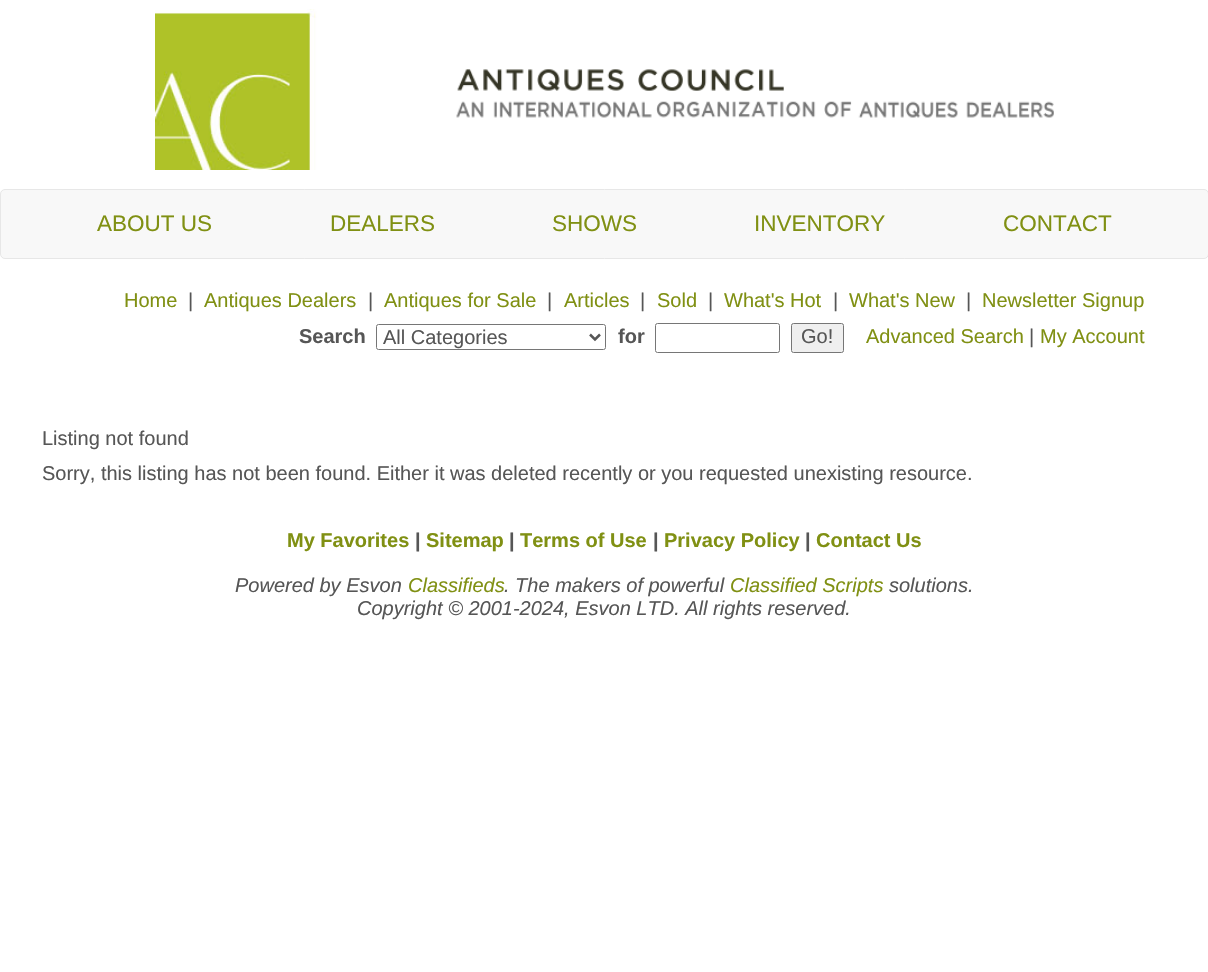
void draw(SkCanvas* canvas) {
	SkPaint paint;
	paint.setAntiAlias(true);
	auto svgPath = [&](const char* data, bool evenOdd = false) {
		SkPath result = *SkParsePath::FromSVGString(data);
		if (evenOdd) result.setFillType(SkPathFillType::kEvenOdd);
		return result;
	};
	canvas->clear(0xffffffff);
	canvas->drawImageRect(SkImages::DeferredFromEncodedData(SkData::MakeFromFileName("img1.png")), SkRect::MakeXYWH(155, 9, 899, 161), SkSamplingOptions());
	paint.setColor(0xfff8f8f8);
	canvas->drawRoundRect(SkRect::MakeXYWH(0.5, 189.5, 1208, 69), 4.5, 4.5, paint);
	paint.setStroke(true);
	paint.setStrokeWidth(1);
	paint.setColor(0xffe7e7e7);
	canvas->drawRoundRect(SkRect::MakeXYWH(0.5, 189.5, 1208, 69), 4.5, 4.5, paint);
	SkFont f1(fontMgr->matchFamilyStyle("Liberation Sans", SkFontStyle::Normal()), 22.5);
	f1.setSubpixel(true);
	paint.setStroke(false);
	paint.setColor(0xff809013);
	canvas->drawString("ABOUT US", 97, 231, f1, paint);
	canvas->drawString("DEALERS", 330, 231, f1, paint);
	canvas->drawString("SHOWS", 552, 231, f1, paint);
	canvas->drawString("INVENTORY", 754, 231, f1, paint);
	canvas->drawString("CONTACT", 1003, 231, f1, paint);
	SkFont f2(fontMgr->matchFamilyStyle("Liberation Sans", SkFontStyle::Normal()), 20);
	f2.setSubpixel(true);
	canvas->drawString("Home", 124, 307, f2, paint);
	paint.setColor(0xff565656);
	canvas->drawString("|", 188, 307, f2, paint);
	paint.setColor(0xff809013);
	canvas->drawString("Antiques Dealers", 204, 307, f2, paint);
	paint.setColor(0xff565656);
	canvas->drawString("|", 368, 307, f2, paint);
	paint.setColor(0xff809013);
	canvas->drawString("Antiques for Sale", 384, 307, f2, paint);
	paint.setColor(0xff565656);
	canvas->drawString("|", 547, 307, f2, paint);
	paint.setColor(0xff809013);
	canvas->drawString("Articles", 564, 307, f2, paint);
	paint.setColor(0xff565656);
	canvas->drawString("|", 640, 307, f2, paint);
	paint.setColor(0xff809013);
	canvas->drawString("Sold", 657, 307, f2, paint);
	paint.setColor(0xff565656);
	canvas->drawString("|", 708, 307, f2, paint);
	paint.setColor(0xff809013);
	canvas->drawString("What's Hot", 724, 307, f2, paint);
	paint.setColor(0xff565656);
	canvas->drawString("|", 833, 307, f2, paint);
	paint.setColor(0xff809013);
	canvas->drawString("What's New", 849, 307, f2, paint);
	paint.setColor(0xff565656);
	canvas->drawString("|", 966, 307, f2, paint);
	paint.setColor(0xff809013);
	canvas->drawString("Newsletter Signup", 982, 307, f2, paint);
	SkFont f3(fontMgr->matchFamilyStyle("Liberation Sans", SkFontStyle::Bold()), 20);
	f3.setSubpixel(true);
	paint.setColor(0xff565656);
	canvas->drawString("Search", 299, 343, f3, paint);
	paint.setStroke(true);
	paint.setColor(0xff767676);
	canvas->drawRoundRect(SkRect::MakeXYWH(376.5, 324.5, 229, 25), 2, 2, paint);
	paint.setStrokeWidth(2.5);
	paint.setColor(0xff565656);
	canvas->drawPath(svgPath("M590 334.5L595 339.5L600 334.5"), paint);
	paint.setStroke(false);
	canvas->drawString("All Categories", 383, 344, f2, paint);
	canvas->drawString("for", 618, 343, f3, paint);
	paint.setStroke(true);
	paint.setStrokeWidth(1);
	paint.setColor(0xff767676);
	canvas->drawRoundRect(SkRect::MakeXYWH(655.5, 323.5, 124, 29), 2, 2, paint);
	paint.setStroke(false);
	paint.setColor(0xffefefef);
	canvas->drawRoundRect(SkRect::MakeXYWH(791.5, 323.5, 52, 29), 2, 2, paint);
	paint.setStroke(true);
	paint.setColor(0xff767676);
	canvas->drawRoundRect(SkRect::MakeXYWH(791.5, 323.5, 52, 29), 2, 2, paint);
	paint.setStroke(false);
	paint.setColor(0xff565656);
	canvas->drawString("Go!", 801, 343, f2, paint);
	paint.setColor(0xff809013);
	canvas->drawString("Advanced Search", 866, 343, f2, paint);
	paint.setColor(0xff565656);
	canvas->drawString("|", 1029, 343, f2, paint);
	paint.setColor(0xff809013);
	canvas->drawString("My Account", 1040, 343, f2, paint);
	paint.setColor(0xff565656);
	canvas->drawString("Listing not found", 42, 445, f2, paint);
	canvas->drawString("Sorry, this listing has not been found. Either it was deleted recently or you requested unexisting resource.", 42, 480, f2, paint);
	paint.setColor(0xff809013);
	canvas->drawString("My Favorites", 287, 547, f3, paint);
	paint.setColor(0xff565656);
	canvas->drawString("|", 415, 547, f3, paint);
	paint.setColor(0xff809013);
	canvas->drawString("Sitemap", 426, 547, f3, paint);
	paint.setColor(0xff565656);
	canvas->drawString("|", 509, 547, f3, paint);
	paint.setColor(0xff809013);
	canvas->drawString("Terms of Use", 520, 547, f3, paint);
	paint.setColor(0xff565656);
	canvas->drawString("|", 653, 547, f3, paint);
	paint.setColor(0xff809013);
	canvas->drawString("Privacy Policy", 664, 547, f3, paint);
	paint.setColor(0xff565656);
	canvas->drawString("|", 805, 547, f3, paint);
	paint.setColor(0xff809013);
	canvas->drawString("Contact Us", 816, 547, f3, paint);
	SkFont f4(fontMgr->matchFamilyStyle("Liberation Sans", SkFontStyle::Italic()), 20);
	f4.setSubpixel(true);
	paint.setColor(0xff565656);
	canvas->drawString("Powered by Esvon", 235, 592, f4, paint);
	paint.setColor(0xff809013);
	canvas->drawString("Classifieds", 408, 592, f4, paint);
	paint.setColor(0xff565656);
	canvas->drawString(". The makers of powerful", 504, 592, f4, paint);
	paint.setColor(0xff809013);
	canvas->drawString("Classified Scripts", 730, 592, f4, paint);
	paint.setColor(0xff565656);
	canvas->drawString("solutions.", 889, 592, f4, paint);
	canvas->drawString("Copyright © 2001-2024, Esvon LTD. All rights reserved.", 357, 615, f4, paint);
}
